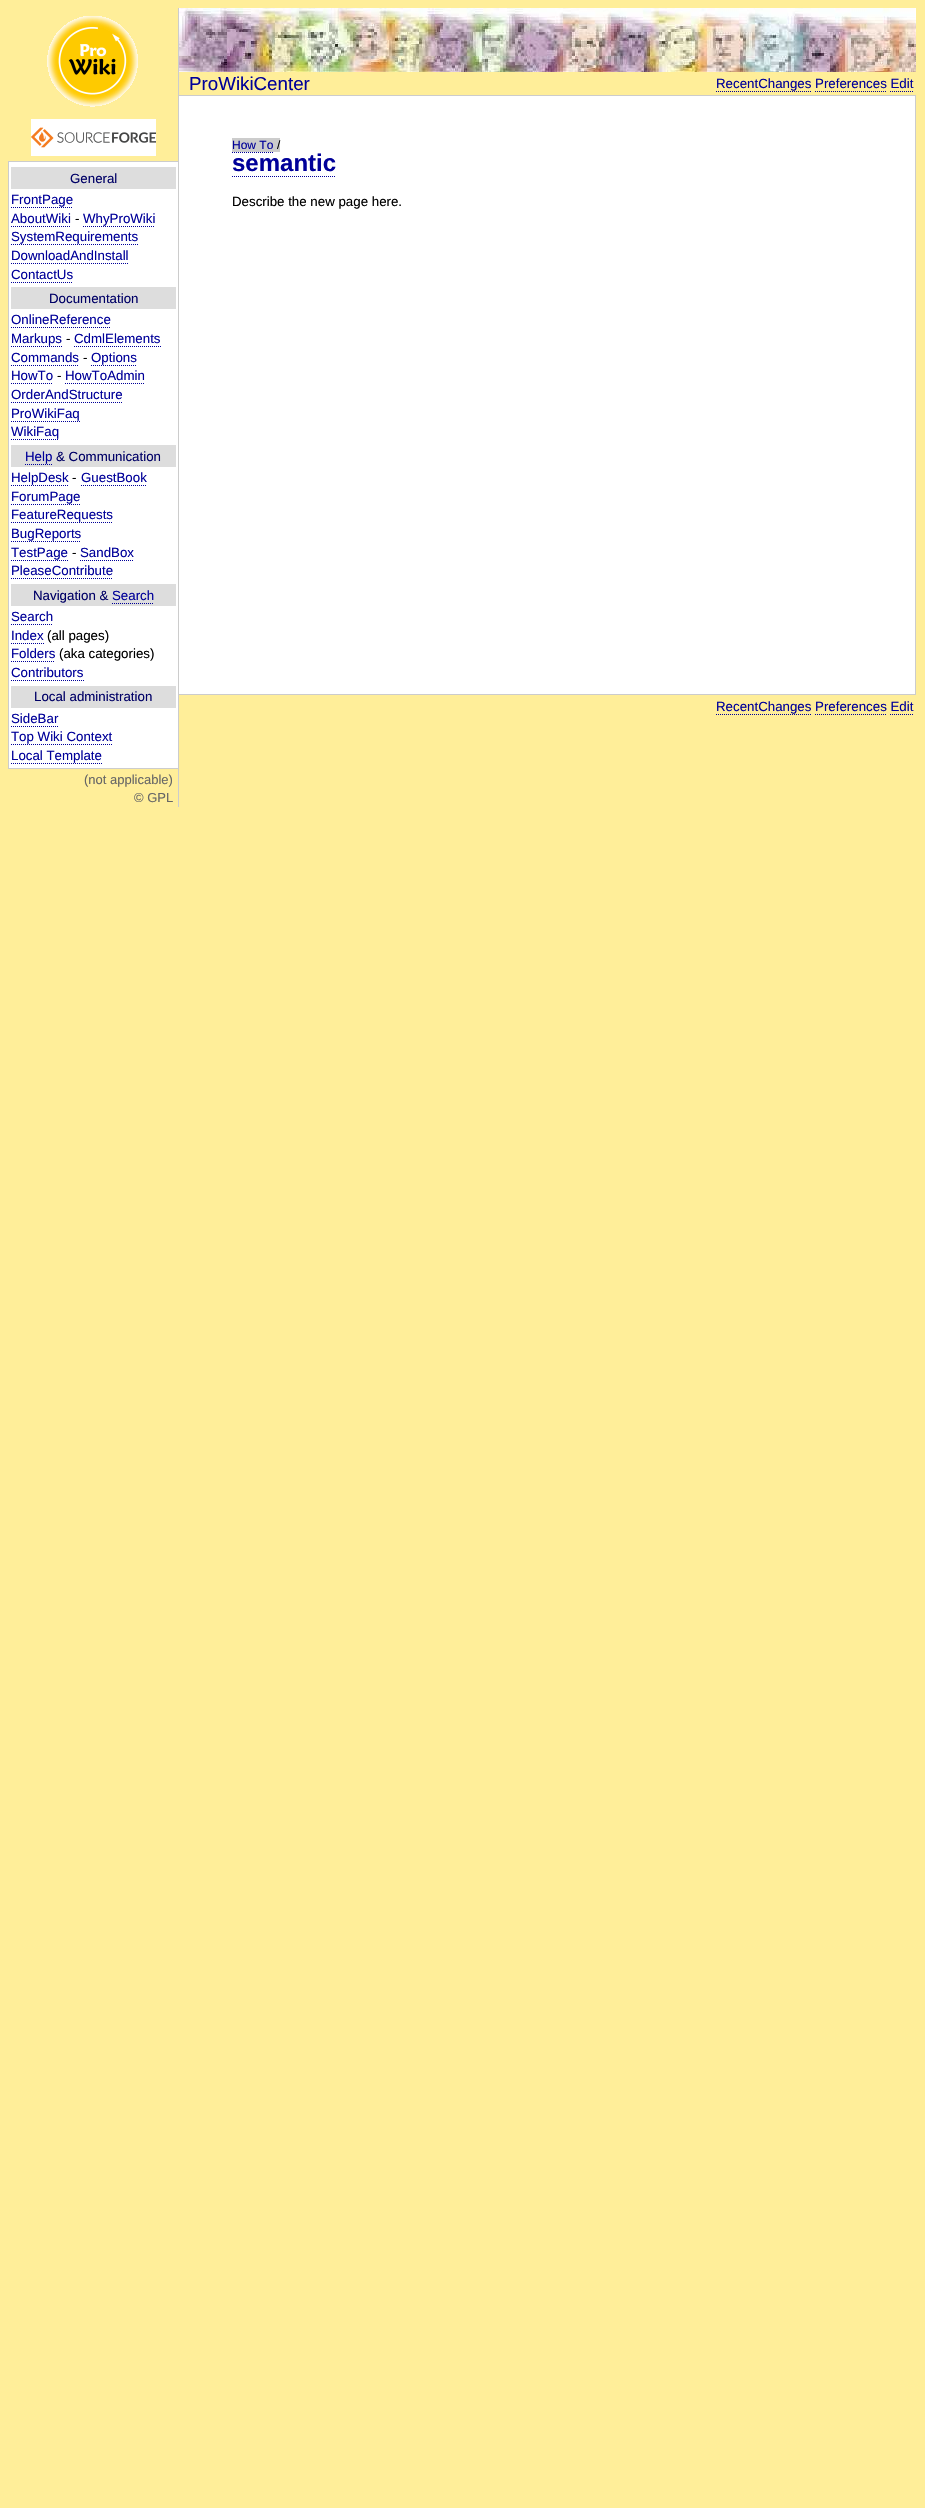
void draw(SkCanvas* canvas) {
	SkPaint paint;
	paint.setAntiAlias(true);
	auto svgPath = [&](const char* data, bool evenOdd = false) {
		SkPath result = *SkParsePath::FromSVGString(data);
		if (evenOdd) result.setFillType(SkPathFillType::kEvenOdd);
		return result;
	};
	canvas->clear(0xffffee99);
	canvas->drawImageRect(SkImages::DeferredFromEncodedData(SkData::MakeFromFileName("img1.png")), SkRect::MakeXYWH(47, 16, 91, 91), SkSamplingOptions());
	canvas->drawImageRect(SkImages::DeferredFromEncodedData(SkData::MakeFromFileName("img2.png")), SkRect::MakeXYWH(31, 119, 125, 37), SkSamplingOptions());
	paint.setColor(0xffffffff);
	canvas->drawRect(SkRect::MakeXYWH(9, 162, 169, 606), paint);
	paint.setColor(0xffcccccc);
	canvas->drawRect(SkRect::MakeXYWH(8, 161, 170, 1), paint);
	canvas->drawRect(SkRect::MakeXYWH(8, 768, 170, 1), paint);
	canvas->drawRect(SkRect::MakeXYWH(8, 161, 1, 608), paint);
	paint.setColor(0xffdddddd);
	canvas->drawRect(SkRect::MakeXYWH(11, 167, 165, 22), paint);
	SkFont f1(fontMgr->matchFamilyStyle("Liberation Sans", SkFontStyle::Normal()), 13.3);
	f1.setSubpixel(true);
	paint.setColor(0xff000066);
	canvas->drawString("General", 70, 183, f1, paint);
	paint.setColor(0xff000099);
	canvas->drawString("FrontPage", 11, 204, f1, paint);
	paint.setStroke(true);
	paint.setStrokeWidth(1);
	paint.setPathEffect(SkDashPathEffect::Make({{1, 1}}, 0));
	canvas->drawPath(svgPath("M11 207.5H73"), paint);
	paint.setPathEffect(nullptr);
	paint.setStroke(false);
	canvas->drawString("AboutWiki", 11, 223, f1, paint);
	paint.setStroke(true);
	paint.setPathEffect(SkDashPathEffect::Make({{1, 1}}, 0));
	canvas->drawPath(svgPath("M11 226.5H71"), paint);
	paint.setPathEffect(nullptr);
	paint.setStroke(false);
	paint.setColor(0xff000000);
	canvas->drawString("-", 75, 223, f1, paint);
	paint.setColor(0xff000099);
	canvas->drawString("WhyProWiki", 83, 223, f1, paint);
	paint.setStroke(true);
	paint.setPathEffect(SkDashPathEffect::Make({{1, 1}}, 0));
	canvas->drawPath(svgPath("M83 226.5H155"), paint);
	paint.setPathEffect(nullptr);
	paint.setStroke(false);
	canvas->drawString("SystemRequirements", 11, 241, f1, paint);
	paint.setStroke(true);
	paint.setPathEffect(SkDashPathEffect::Make({{1, 1}}, 0));
	canvas->drawPath(svgPath("M11 244.5H138"), paint);
	paint.setPathEffect(nullptr);
	paint.setStroke(false);
	canvas->drawString("DownloadAndInstall", 11, 260, f1, paint);
	paint.setStroke(true);
	paint.setPathEffect(SkDashPathEffect::Make({{1, 1}}, 0));
	canvas->drawPath(svgPath("M11 263.5H129"), paint);
	paint.setPathEffect(nullptr);
	paint.setStroke(false);
	canvas->drawString("ContactUs", 11, 279, f1, paint);
	paint.setStroke(true);
	paint.setPathEffect(SkDashPathEffect::Make({{1, 1}}, 0));
	canvas->drawPath(svgPath("M11 282.5H73"), paint);
	paint.setPathEffect(nullptr);
	paint.setStroke(false);
	paint.setColor(0xffdddddd);
	canvas->drawRect(SkRect::MakeXYWH(11, 287, 165, 22), paint);
	paint.setColor(0xff000066);
	canvas->drawString("Documentation", 49, 303, f1, paint);
	paint.setColor(0xff000099);
	canvas->drawString("OnlineReference", 11, 324, f1, paint);
	paint.setStroke(true);
	paint.setPathEffect(SkDashPathEffect::Make({{1, 1}}, 0));
	canvas->drawPath(svgPath("M11 327.5H111"), paint);
	paint.setPathEffect(nullptr);
	paint.setStroke(false);
	canvas->drawString("Markups", 11, 343, f1, paint);
	paint.setStroke(true);
	paint.setPathEffect(SkDashPathEffect::Make({{1, 1}}, 0));
	canvas->drawPath(svgPath("M11 346.5H62"), paint);
	paint.setPathEffect(nullptr);
	paint.setStroke(false);
	paint.setColor(0xff000000);
	canvas->drawString("-", 66, 343, f1, paint);
	paint.setColor(0xff000099);
	canvas->drawString("CdmlElements", 74, 343, f1, paint);
	paint.setStroke(true);
	paint.setPathEffect(SkDashPathEffect::Make({{1, 1}}, 0));
	canvas->drawPath(svgPath("M74 346.5H161"), paint);
	paint.setPathEffect(nullptr);
	paint.setStroke(false);
	canvas->drawString("Commands", 11, 362, f1, paint);
	paint.setStroke(true);
	paint.setPathEffect(SkDashPathEffect::Make({{1, 1}}, 0));
	canvas->drawPath(svgPath("M11 365.5H79"), paint);
	paint.setPathEffect(nullptr);
	paint.setStroke(false);
	paint.setColor(0xff000000);
	canvas->drawString("-", 83, 362, f1, paint);
	paint.setColor(0xff000099);
	canvas->drawString("Options", 91, 362, f1, paint);
	paint.setStroke(true);
	paint.setPathEffect(SkDashPathEffect::Make({{1, 1}}, 0));
	canvas->drawPath(svgPath("M91 365.5H137"), paint);
	paint.setPathEffect(nullptr);
	paint.setStroke(false);
	canvas->drawString("HowTo", 11, 380, f1, paint);
	paint.setStroke(true);
	paint.setPathEffect(SkDashPathEffect::Make({{1, 1}}, 0));
	canvas->drawPath(svgPath("M11 383.5H53"), paint);
	paint.setPathEffect(nullptr);
	paint.setStroke(false);
	paint.setColor(0xff000000);
	canvas->drawString("-", 57, 380, f1, paint);
	paint.setColor(0xff000099);
	canvas->drawString("HowToAdmin", 65, 380, f1, paint);
	paint.setStroke(true);
	paint.setPathEffect(SkDashPathEffect::Make({{1, 1}}, 0));
	canvas->drawPath(svgPath("M65 383.5H145"), paint);
	paint.setPathEffect(nullptr);
	paint.setStroke(false);
	canvas->drawString("OrderAndStructure", 11, 399, f1, paint);
	paint.setStroke(true);
	paint.setPathEffect(SkDashPathEffect::Make({{1, 1}}, 0));
	canvas->drawPath(svgPath("M11 402.5H123"), paint);
	paint.setPathEffect(nullptr);
	paint.setStroke(false);
	canvas->drawString("ProWikiFaq", 11, 418, f1, paint);
	paint.setStroke(true);
	paint.setPathEffect(SkDashPathEffect::Make({{1, 1}}, 0));
	canvas->drawPath(svgPath("M11 421.5H80"), paint);
	paint.setPathEffect(nullptr);
	paint.setStroke(false);
	canvas->drawString("WikiFaq", 11, 436, f1, paint);
	paint.setStroke(true);
	paint.setPathEffect(SkDashPathEffect::Make({{1, 1}}, 0));
	canvas->drawPath(svgPath("M11 439.5H59"), paint);
	paint.setPathEffect(nullptr);
	paint.setStroke(false);
	paint.setColor(0xffdddddd);
	canvas->drawRect(SkRect::MakeXYWH(11, 445, 165, 22), paint);
	paint.setColor(0xff000099);
	canvas->drawString("Help", 25, 461, f1, paint);
	paint.setStroke(true);
	paint.setPathEffect(SkDashPathEffect::Make({{1, 1}}, 0));
	canvas->drawPath(svgPath("M25 464.5H53"), paint);
	paint.setPathEffect(nullptr);
	paint.setStroke(false);
	paint.setColor(0xff000066);
	canvas->drawString("& Communication", 56, 461, f1, paint);
	paint.setColor(0xff000099);
	canvas->drawString("HelpDesk", 11, 482, f1, paint);
	paint.setStroke(true);
	paint.setPathEffect(SkDashPathEffect::Make({{1, 1}}, 0));
	canvas->drawPath(svgPath("M11 485.5H69"), paint);
	paint.setPathEffect(nullptr);
	paint.setStroke(false);
	paint.setColor(0xff000000);
	canvas->drawString("-", 72, 482, f1, paint);
	paint.setColor(0xff000099);
	canvas->drawString("GuestBook", 81, 482, f1, paint);
	paint.setStroke(true);
	paint.setPathEffect(SkDashPathEffect::Make({{1, 1}}, 0));
	canvas->drawPath(svgPath("M81 485.5H147"), paint);
	paint.setPathEffect(nullptr);
	paint.setStroke(false);
	canvas->drawString("ForumPage", 11, 501, f1, paint);
	paint.setStroke(true);
	paint.setPathEffect(SkDashPathEffect::Make({{1, 1}}, 0));
	canvas->drawPath(svgPath("M11 504.5H81"), paint);
	paint.setPathEffect(nullptr);
	paint.setStroke(false);
	canvas->drawString("FeatureRequests", 11, 519, f1, paint);
	paint.setStroke(true);
	paint.setPathEffect(SkDashPathEffect::Make({{1, 1}}, 0));
	canvas->drawPath(svgPath("M11 522.5H113"), paint);
	paint.setPathEffect(nullptr);
	paint.setStroke(false);
	canvas->drawString("BugReports", 11, 538, f1, paint);
	paint.setStroke(true);
	paint.setPathEffect(SkDashPathEffect::Make({{1, 1}}, 0));
	canvas->drawPath(svgPath("M11 541.5H81"), paint);
	paint.setPathEffect(nullptr);
	paint.setStroke(false);
	canvas->drawString("TestPage", 11, 557, f1, paint);
	paint.setStroke(true);
	paint.setPathEffect(SkDashPathEffect::Make({{1, 1}}, 0));
	canvas->drawPath(svgPath("M11 560.5H68"), paint);
	paint.setPathEffect(nullptr);
	paint.setStroke(false);
	paint.setColor(0xff000000);
	canvas->drawString("-", 72, 557, f1, paint);
	paint.setColor(0xff000099);
	canvas->drawString("SandBox", 80, 557, f1, paint);
	paint.setStroke(true);
	paint.setPathEffect(SkDashPathEffect::Make({{1, 1}}, 0));
	canvas->drawPath(svgPath("M80 560.5H134"), paint);
	paint.setPathEffect(nullptr);
	paint.setStroke(false);
	canvas->drawString("PleaseContribute", 11, 575, f1, paint);
	paint.setStroke(true);
	paint.setPathEffect(SkDashPathEffect::Make({{1, 1}}, 0));
	canvas->drawPath(svgPath("M11 578.5H113"), paint);
	paint.setPathEffect(nullptr);
	paint.setStroke(false);
	paint.setColor(0xffdddddd);
	canvas->drawRect(SkRect::MakeXYWH(11, 584, 165, 22), paint);
	paint.setColor(0xff000066);
	canvas->drawString("Navigation &", 33, 600, f1, paint);
	paint.setColor(0xff000099);
	canvas->drawString("Search", 112, 600, f1, paint);
	paint.setStroke(true);
	paint.setPathEffect(SkDashPathEffect::Make({{1, 1}}, 0));
	canvas->drawPath(svgPath("M112 603.5H154"), paint);
	paint.setPathEffect(nullptr);
	paint.setStroke(false);
	canvas->drawString("Search", 11, 621, f1, paint);
	paint.setStroke(true);
	paint.setPathEffect(SkDashPathEffect::Make({{1, 1}}, 0));
	canvas->drawPath(svgPath("M11 624.5H53"), paint);
	paint.setPathEffect(nullptr);
	paint.setStroke(false);
	canvas->drawString("Index", 11, 640, f1, paint);
	paint.setStroke(true);
	paint.setPathEffect(SkDashPathEffect::Make({{1, 1}}, 0));
	canvas->drawPath(svgPath("M11 643.5H44"), paint);
	paint.setPathEffect(nullptr);
	paint.setStroke(false);
	paint.setColor(0xff000000);
	canvas->drawString("(all pages)", 47, 640, f1, paint);
	paint.setColor(0xff000099);
	canvas->drawString("Folders", 11, 658, f1, paint);
	paint.setStroke(true);
	paint.setPathEffect(SkDashPathEffect::Make({{1, 1}}, 0));
	canvas->drawPath(svgPath("M11 661.5H55"), paint);
	paint.setPathEffect(nullptr);
	paint.setStroke(false);
	paint.setColor(0xff000000);
	canvas->drawString("(aka categories)", 59, 658, f1, paint);
	paint.setColor(0xff000099);
	canvas->drawString("Contributors", 11, 677, f1, paint);
	paint.setStroke(true);
	paint.setPathEffect(SkDashPathEffect::Make({{1, 1}}, 0));
	canvas->drawPath(svgPath("M11 680.5H84"), paint);
	paint.setPathEffect(nullptr);
	paint.setStroke(false);
	paint.setColor(0xffdddddd);
	canvas->drawRect(SkRect::MakeXYWH(11, 686, 165, 22), paint);
	paint.setColor(0xff000066);
	canvas->drawString("Local administration", 34, 701, f1, paint);
	paint.setColor(0xff000099);
	canvas->drawString("SideBar", 11, 723, f1, paint);
	paint.setStroke(true);
	paint.setPathEffect(SkDashPathEffect::Make({{1, 1}}, 0));
	canvas->drawPath(svgPath("M11 726.5H58"), paint);
	paint.setPathEffect(nullptr);
	paint.setStroke(false);
	canvas->drawString("Top Wiki Context", 11, 741, f1, paint);
	paint.setStroke(true);
	paint.setPathEffect(SkDashPathEffect::Make({{1, 1}}, 0));
	canvas->drawPath(svgPath("M11 744.5H112"), paint);
	paint.setPathEffect(nullptr);
	paint.setStroke(false);
	canvas->drawString("Local Template", 11, 760, f1, paint);
	paint.setStroke(true);
	paint.setPathEffect(SkDashPathEffect::Make({{1, 1}}, 0));
	canvas->drawPath(svgPath("M11 763.5H102"), paint);
	paint.setPathEffect(nullptr);
	SkFont f2(fontMgr->matchFamilyStyle("Liberation Sans", SkFontStyle::Normal()), 13);
	f2.setSubpixel(true);
	paint.setStroke(false);
	paint.setColor(0xff666666);
	canvas->drawString("(not applicable)", 84, 784, f2, paint);
	canvas->drawString("© GPL", 134, 802, f2, paint);
	paint.setColor(0xffcccccc);
	canvas->drawRect(SkRect::MakeXYWH(178, 8, 1, 799), paint);
	canvas->drawImageRect(SkImages::DeferredFromEncodedData(SkData::MakeFromFileName("img3.png")), SkRect::MakeXYWH(179, 8, 737, 64), SkSamplingOptions());
	SkFont f3(fontMgr->matchFamilyStyle("Liberation Sans", SkFontStyle::Normal()), 18.75);
	f3.setSubpixel(true);
	paint.setColor(0xff000099);
	canvas->drawString("ProWikiCenter", 189, 90, f3, paint);
	canvas->drawString("RecentChanges Preferences Edit", 716, 88, f1, paint);
	paint.setStroke(true);
	paint.setPathEffect(SkDashPathEffect::Make({{1, 1}}, 0));
	canvas->drawPath(svgPath("M716 91.5H811"), paint);
	paint.setPathEffect(nullptr);
	paint.setPathEffect(SkDashPathEffect::Make({{1, 1}}, 0));
	canvas->drawPath(svgPath("M815 91.5H887"), paint);
	paint.setPathEffect(nullptr);
	paint.setPathEffect(SkDashPathEffect::Make({{1, 1}}, 0));
	canvas->drawPath(svgPath("M890 91.5H913"), paint);
	paint.setPathEffect(nullptr);
	paint.setStroke(false);
	paint.setColor(0xffffffff);
	canvas->drawRect(SkRect::MakeXYWH(179, 96, 736, 598), paint);
	paint.setColor(0xffcccccc);
	canvas->drawRect(SkRect::MakeXYWH(179, 95, 737, 1), paint);
	canvas->drawRect(SkRect::MakeXYWH(915, 95, 1, 600), paint);
	canvas->drawRect(SkRect::MakeXYWH(179, 694, 737, 1), paint);
	canvas->drawRect(SkRect::MakeXYWH(232, 138, 48, 14), paint);
	SkFont f4(fontMgr->matchFamilyStyle("Liberation Sans", SkFontStyle::Normal()), 12);
	f4.setSubpixel(true);
	paint.setColor(0xff000099);
	canvas->drawString("How To", 232, 149, f4, paint);
	paint.setStroke(true);
	paint.setPathEffect(SkDashPathEffect::Make({{1, 1}}, 0));
	canvas->drawPath(svgPath("M232 152.5H274"), paint);
	paint.setPathEffect(nullptr);
	paint.setStroke(false);
	paint.setColor(0xff000000);
	canvas->drawString("/", 277, 149, f4, paint);
	SkFont f5(fontMgr->matchFamilyStyle("Liberation Sans", SkFontStyle::Bold()), 24);
	f5.setSubpixel(true);
	paint.setColor(0xff000099);
	canvas->drawString("semantic", 232, 171, f5, paint);
	paint.setStroke(true);
	paint.setPathEffect(SkDashPathEffect::Make({{1, 1}}, 0));
	canvas->drawPath(svgPath("M232 176.5H336"), paint);
	paint.setPathEffect(nullptr);
	paint.setStroke(false);
	paint.setColor(0xff000000);
	canvas->drawString("Describe the new page here.", 232, 206, f1, paint);
	paint.setColor(0xff000099);
	canvas->drawString("RecentChanges Preferences Edit", 716, 711, f1, paint);
	paint.setStroke(true);
	paint.setPathEffect(SkDashPathEffect::Make({{1, 1}}, 0));
	canvas->drawPath(svgPath("M716 714.5H811"), paint);
	paint.setPathEffect(nullptr);
	paint.setPathEffect(SkDashPathEffect::Make({{1, 1}}, 0));
	canvas->drawPath(svgPath("M815 714.5H887"), paint);
	paint.setPathEffect(nullptr);
	paint.setPathEffect(SkDashPathEffect::Make({{1, 1}}, 0));
	canvas->drawPath(svgPath("M890 714.5H913"), paint);
	paint.setPathEffect(nullptr);
}
